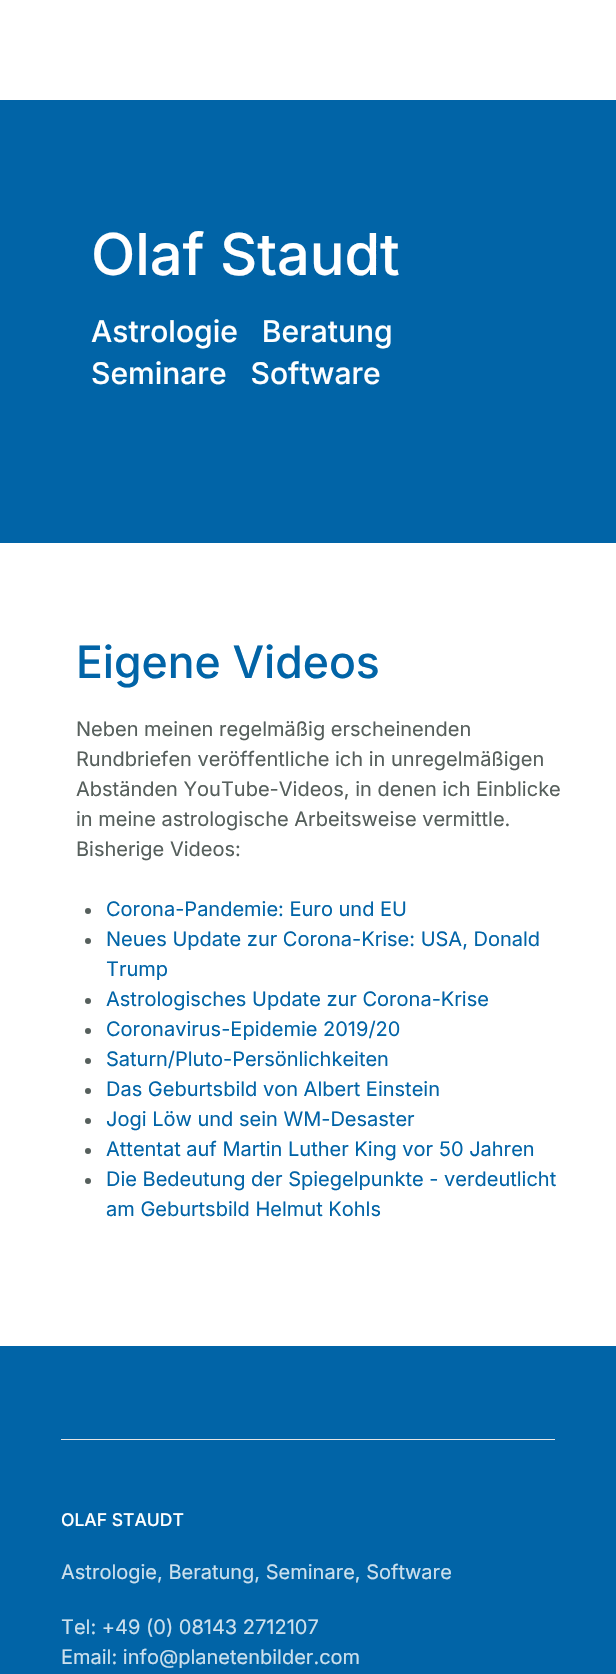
void draw(SkCanvas* canvas) {
	SkPaint paint;
	paint.setAntiAlias(true);
	canvas->clear(0xffffffff);
	paint.setColor(0xff0164a7);
	canvas->drawRect(SkRect::MakeXYWH(0, 100, 616, 443), paint);
	SkFont f1(fontMgr->matchFamilyStyle("Inter", SkFontStyle(500, SkFontStyle::kNormal_Width, SkFontStyle::kUpright_Slant)), 57.75);
	f1.setSubpixel(true);
	paint.setColor(0xffffffff);
	canvas->drawString("Olaf Staudt", 91, 275, f1, paint);
	SkFont f2(fontMgr->matchFamilyStyle("Inter", SkFontStyle(500, SkFontStyle::kNormal_Width, SkFontStyle::kUpright_Slant)), 30);
	f2.setSubpixel(true);
	canvas->drawString("Astrologie   Beratung", 91, 342, f2, paint);
	canvas->drawString("Seminare   Software", 91, 384, f2, paint);
	SkFont f3(fontMgr->matchFamilyStyle("Inter", SkFontStyle(500, SkFontStyle::kNormal_Width, SkFontStyle::kUpright_Slant)), 44.5);
	f3.setSubpixel(true);
	paint.setColor(0xff0164a7);
	canvas->drawString("Eigene Videos", 76, 678, f3, paint);
	SkFont f4(fontMgr->matchFamilyStyle("Inter", SkFontStyle::Normal()), 20);
	f4.setSubpixel(true);
	paint.setColor(0xff565f5c);
	canvas->drawString("Neben meinen regelmäßig erscheinenden", 76, 736, f4, paint);
	canvas->drawString("Rundbriefen veröffentliche ich in unregelmäßigen", 76, 766, f4, paint);
	canvas->drawString("Abständen YouTube-Videos, in denen ich Einblicke", 76, 796, f4, paint);
	canvas->drawString("in meine astrologische Arbeitsweise vermittle.", 76, 826, f4, paint);
	canvas->drawString("Bisherige Videos:", 76, 856, f4, paint);
	canvas->drawCircle(88, 911, 3, paint);
	paint.setColor(0xff0164a7);
	canvas->drawString("Corona-Pandemie: Euro und EU", 106, 916, f4, paint);
	paint.setColor(0xff565f5c);
	canvas->drawCircle(88, 941, 3, paint);
	paint.setColor(0xff0164a7);
	canvas->drawString("Neues Update zur Corona-Krise: USA, Donald", 106, 946, f4, paint);
	canvas->drawString("Trump", 106, 976, f4, paint);
	paint.setColor(0xff565f5c);
	canvas->drawCircle(88, 1001, 3, paint);
	paint.setColor(0xff0164a7);
	canvas->drawString("Astrologisches Update zur Corona-Krise", 106, 1006, f4, paint);
	paint.setColor(0xff565f5c);
	canvas->drawCircle(88, 1031, 3, paint);
	paint.setColor(0xff0164a7);
	canvas->drawString("Coronavirus-Epidemie 2019/20", 106, 1036, f4, paint);
	paint.setColor(0xff565f5c);
	canvas->drawCircle(88, 1061, 3, paint);
	paint.setColor(0xff0164a7);
	canvas->drawString("Saturn/Pluto-Persönlichkeiten", 106, 1066, f4, paint);
	paint.setColor(0xff565f5c);
	canvas->drawCircle(88, 1091, 3, paint);
	paint.setColor(0xff0164a7);
	canvas->drawString("Das Geburtsbild von Albert Einstein", 106, 1096, f4, paint);
	paint.setColor(0xff565f5c);
	canvas->drawCircle(88, 1121, 3, paint);
	paint.setColor(0xff0164a7);
	canvas->drawString("Jogi Löw und sein WM-Desaster", 106, 1126, f4, paint);
	paint.setColor(0xff565f5c);
	canvas->drawCircle(88, 1151, 3, paint);
	paint.setColor(0xff0164a7);
	canvas->drawString("Attentat auf Martin Luther King vor 50 Jahren", 106, 1156, f4, paint);
	paint.setColor(0xff565f5c);
	canvas->drawCircle(88, 1181, 3, paint);
	paint.setColor(0xff0164a7);
	canvas->drawString("Die Bedeutung der Spiegelpunkte - verdeutlicht", 106, 1186, f4, paint);
	canvas->drawString("am Geburtsbild Helmut Kohls", 106, 1216, f4, paint);
	canvas->drawRect(SkRect::MakeXYWH(0, 1346, 616, 328), paint);
	paint.setColor(0xffe5e5e5);
	canvas->drawRect(SkRect::MakeXYWH(61, 1439, 494, 1), paint);
	SkFont f5(fontMgr->matchFamilyStyle("Inter", SkFontStyle(500, SkFontStyle::kNormal_Width, SkFontStyle::kUpright_Slant)), 17.5);
	f5.setSubpixel(true);
	paint.setColor(0xffffffff);
	canvas->drawString("OLAF STAUDT", 61, 1526, f5, paint);
	paint.setColor(0xffcce0ed);
	canvas->drawString("Astrologie, Beratung, Seminare, Software", 61, 1579, f4, paint);
	canvas->drawString("Tel: +49 (0) 08143 2712107", 61, 1634, f4, paint);
	canvas->drawString("Email: info@planetenbilder.com", 61, 1664, f4, paint);
}
